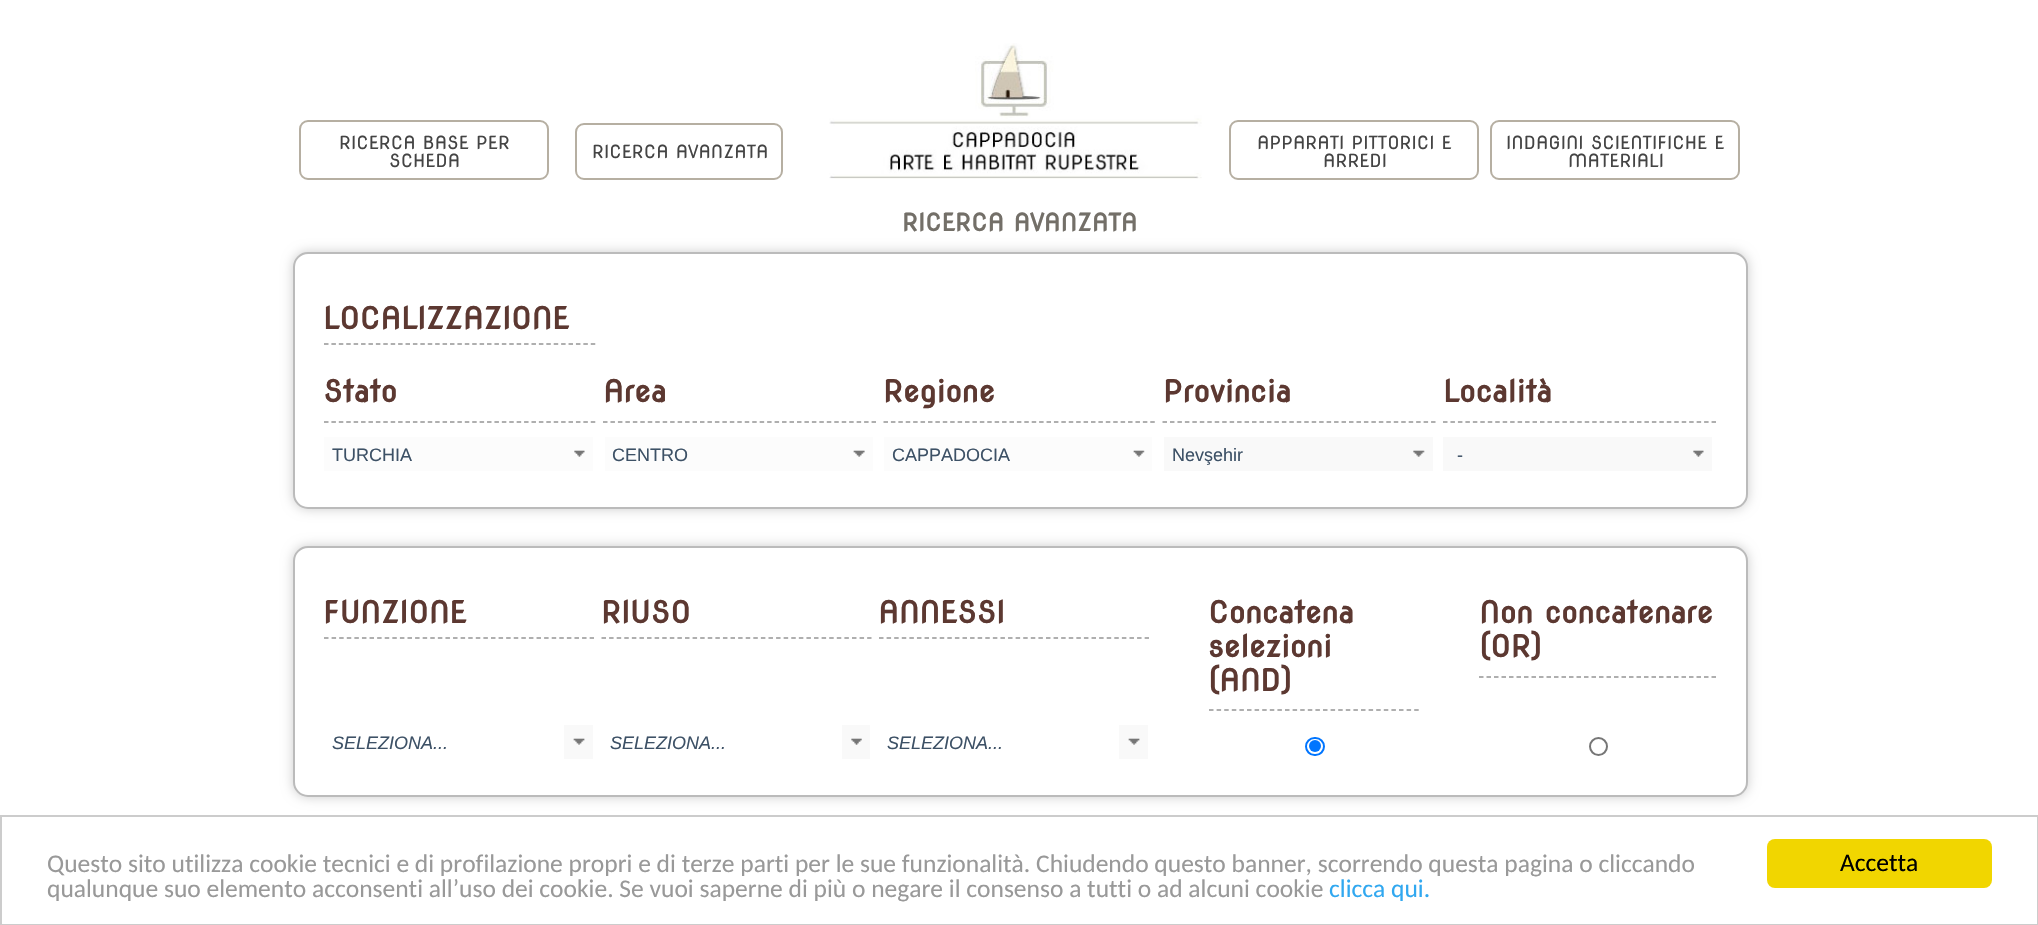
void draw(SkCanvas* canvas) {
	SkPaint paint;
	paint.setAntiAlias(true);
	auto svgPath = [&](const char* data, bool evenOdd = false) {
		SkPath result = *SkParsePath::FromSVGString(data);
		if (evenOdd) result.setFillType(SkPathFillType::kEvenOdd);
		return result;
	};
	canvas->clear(0xffffffff);
	paint.setStroke(true);
	paint.setStrokeWidth(2);
	paint.setColor(0xffb6afa2);
	canvas->drawRoundRect(SkRect::MakeXYWH(300, 121, 248, 58), 8, 8, paint);
	SkFont f1(fontMgr->matchFamilyStyle("Nova Round", SkFontStyle::Normal()), 18);
	f1.setSubpixel(true);
	paint.setStroke(false);
	paint.setColor(0xff444444);
	canvas->drawString("RICERCA BASE PER", 339, 149, f1, paint);
	canvas->drawString("SCHEDA", 389, 167, f1, paint);
	paint.setStroke(true);
	paint.setColor(0xffb6afa2);
	canvas->drawRoundRect(SkRect::MakeXYWH(576, 124, 206, 55), 8, 8, paint);
	paint.setStroke(false);
	paint.setColor(0xff444444);
	canvas->drawString("RICERCA AVANZATA", 592, 158, f1, paint);
	canvas->drawImageRect(SkImages::DeferredFromEncodedData(SkData::MakeFromFileName("img1.png")), SkRect::MakeXYWH(829, 43, 373, 136), SkSamplingOptions());
	paint.setStroke(true);
	paint.setColor(0xffb6afa2);
	canvas->drawRoundRect(SkRect::MakeXYWH(1230, 121, 248, 58), 8, 8, paint);
	paint.setStroke(false);
	paint.setColor(0xff444444);
	canvas->drawString("APPARATI PITTORICI E", 1257, 149, f1, paint);
	canvas->drawString("ARREDI", 1323, 167, f1, paint);
	paint.setStroke(true);
	paint.setColor(0xffb6afa2);
	canvas->drawRoundRect(SkRect::MakeXYWH(1491, 121, 248, 58), 8, 8, paint);
	paint.setStroke(false);
	paint.setColor(0xff444444);
	canvas->drawString("INDAGINI SCIENTIFICHE E", 1506, 149, f1, paint);
	canvas->drawString("MATERIALI", 1568, 167, f1, paint);
	SkFont f2(fontMgr->matchFamilyStyle("Nova Round", SkFontStyle::Bold()), 24);
	f2.setSubpixel(true);
	paint.setColor(0xff736f68);
	canvas->drawString("RICERCA AVANZATA", 902, 231, f2, paint);
	paint.setColor(0x33000000);
	paint.setMaskFilter(SkMaskFilter::MakeBlur(kNormal_SkBlurStyle, 6));
	canvas->drawRoundRect(SkRect::MakeXYWH(293, 252, 1455, 257), 15, 15, paint);
	paint.setMaskFilter(nullptr);
	paint.setColor(0xffffffff);
	canvas->drawRoundRect(SkRect::MakeXYWH(294, 253, 1453, 255), 14, 14, paint);
	paint.setStroke(true);
	paint.setColor(0xffbbbbbb);
	canvas->drawRoundRect(SkRect::MakeXYWH(294, 253, 1453, 255), 14, 14, paint);
	paint.setStrokeWidth(1.5);
	paint.setColor(0xff959595);
	paint.setPathEffect(SkDashPathEffect::Make({{4.5f, 2.91f}}, 0));
	canvas->drawPath(svgPath("M324 344H595.5"), paint);
	paint.setPathEffect(nullptr);
	SkFont f3(fontMgr->matchFamilyStyle("Nova Round", SkFontStyle::Bold()), 30);
	f3.setSubpixel(true);
	paint.setStroke(false);
	paint.setColor(0xff5c3831);
	canvas->drawString("LOCALIZZAZIONE", 323, 329, f3, paint);
	paint.setStroke(true);
	paint.setColor(0xff959595);
	paint.setPathEffect(SkDashPathEffect::Make({{4.5f, 2.91f}}, 0));
	canvas->drawPath(svgPath("M324 422H595.5"), paint);
	paint.setPathEffect(nullptr);
	paint.setStroke(false);
	paint.setColor(0xff5c3831);
	canvas->drawString("Stato", 323, 402, f3, paint);
	paint.setStroke(true);
	paint.setColor(0xff959595);
	paint.setPathEffect(SkDashPathEffect::Make({{4.5f, 2.96f}}, 0));
	canvas->drawPath(svgPath("M603 422H876"), paint);
	paint.setPathEffect(nullptr);
	paint.setStroke(false);
	paint.setColor(0xff5c3831);
	canvas->drawString("Area", 603, 402, f3, paint);
	paint.setStroke(true);
	paint.setColor(0xff959595);
	paint.setPathEffect(SkDashPathEffect::Make({{4.5f, 2.91f}}, 0));
	canvas->drawPath(svgPath("M883.5 422H1155"), paint);
	paint.setPathEffect(nullptr);
	paint.setStroke(false);
	paint.setColor(0xff5c3831);
	canvas->drawString("Regione", 883, 402, f3, paint);
	paint.setStroke(true);
	paint.setColor(0xff959595);
	paint.setPathEffect(SkDashPathEffect::Make({{4.5f, 2.96f}}, 0));
	canvas->drawPath(svgPath("M1162.5 422H1435.5"), paint);
	paint.setPathEffect(nullptr);
	paint.setStroke(false);
	paint.setColor(0xff5c3831);
	canvas->drawString("Provincia", 1163, 402, f3, paint);
	paint.setStroke(true);
	paint.setColor(0xff959595);
	paint.setPathEffect(SkDashPathEffect::Make({{4.5f, 2.96f}}, 0));
	canvas->drawPath(svgPath("M1443 422H1716"), paint);
	paint.setPathEffect(nullptr);
	paint.setStroke(false);
	paint.setColor(0xff5c3831);
	canvas->drawString("Località", 1443, 402, f3, paint);
	paint.setColor(0xfffcfcfc);
	canvas->drawRect(SkRect::MakeXYWH(324, 437, 269, 34), paint);
	SkFont f4(fontMgr->matchFamilyStyle("Liberation Sans", SkFontStyle::Normal()), 18);
	f4.setSubpixel(true);
	paint.setColor(0xff3d5166);
	canvas->drawString("TURCHIA", 332, 461, f4, paint);
	canvas->drawImageRect(SkImages::DeferredFromEncodedData(SkData::MakeFromFileName("img2.png")), SkRect::MakeXYWH(574, 450, 11, 7), SkSamplingOptions());
	paint.setColor(0xfffcfcfc);
	canvas->drawRect(SkRect::MakeXYWH(605, 437, 268, 34), paint);
	paint.setColor(0xff3d5166);
	canvas->drawString("CENTRO", 612, 461, f4, paint);
	canvas->drawImageRect(SkImages::DeferredFromEncodedData(SkData::MakeFromFileName("img3.png")), SkRect::MakeXYWH(853, 450, 12, 7), SkSamplingOptions());
	paint.setColor(0xfffcfcfc);
	canvas->drawRect(SkRect::MakeXYWH(884, 437, 268, 34), paint);
	paint.setColor(0xff3d5166);
	canvas->drawString("CAPPADOCIA", 892, 461, f4, paint);
	canvas->drawImageRect(SkImages::DeferredFromEncodedData(SkData::MakeFromFileName("img4.png")), SkRect::MakeXYWH(1133, 450, 12, 7), SkSamplingOptions());
	paint.setColor(0xfff9f9f9);
	canvas->drawRect(SkRect::MakeXYWH(1164, 437, 269, 34), paint);
	paint.setColor(0xff3d5166);
	canvas->drawString("Nevşehir", 1172, 461, f4, paint);
	canvas->drawImageRect(SkImages::DeferredFromEncodedData(SkData::MakeFromFileName("img5.png")), SkRect::MakeXYWH(1413, 450, 12, 7), SkSamplingOptions());
	paint.setColor(0xfff9f9f9);
	canvas->drawRect(SkRect::MakeXYWH(1443, 437, 269, 34), paint);
	paint.setColor(0xff3d5166);
	canvas->drawString("-", 1457, 461, f4, paint);
	canvas->drawImageRect(SkImages::DeferredFromEncodedData(SkData::MakeFromFileName("img6.png")), SkRect::MakeXYWH(1693, 450, 11, 7), SkSamplingOptions());
	paint.setColor(0x33000000);
	paint.setMaskFilter(SkMaskFilter::MakeBlur(kNormal_SkBlurStyle, 6));
	canvas->drawRoundRect(SkRect::MakeXYWH(293, 546, 1455, 251), 15, 15, paint);
	paint.setMaskFilter(nullptr);
	paint.setColor(0xffffffff);
	canvas->drawRoundRect(SkRect::MakeXYWH(294, 547, 1453, 249), 14, 14, paint);
	paint.setStroke(true);
	paint.setStrokeWidth(2);
	paint.setColor(0xffbbbbbb);
	canvas->drawRoundRect(SkRect::MakeXYWH(294, 547, 1453, 249), 14, 14, paint);
	paint.setStrokeWidth(1.5);
	paint.setColor(0xff959595);
	paint.setPathEffect(SkDashPathEffect::Make({{4.5f, 3.09f}}, 0));
	canvas->drawPath(svgPath("M324 638H594"), paint);
	paint.setPathEffect(nullptr);
	paint.setStroke(false);
	paint.setColor(0xff5c3831);
	canvas->drawString("FUNZIONE", 323, 623, f3, paint);
	paint.setStroke(true);
	paint.setColor(0xff959595);
	paint.setPathEffect(SkDashPathEffect::Make({{4.5f, 3.09f}}, 0));
	canvas->drawPath(svgPath("M601.5 638H871.5"), paint);
	paint.setPathEffect(nullptr);
	paint.setStroke(false);
	paint.setColor(0xff5c3831);
	canvas->drawString("RIUSO", 601, 623, f3, paint);
	paint.setStroke(true);
	paint.setColor(0xff959595);
	paint.setPathEffect(SkDashPathEffect::Make({{4.5f, 3.09f}}, 0));
	canvas->drawPath(svgPath("M879 638H1149"), paint);
	paint.setPathEffect(nullptr);
	paint.setStroke(false);
	paint.setColor(0xff5c3831);
	canvas->drawString("ANNESSI", 878, 623, f3, paint);
	paint.setStroke(true);
	paint.setColor(0xff959595);
	paint.setPathEffect(SkDashPathEffect::Make({{4.5f, 3.1f}}, 0));
	canvas->drawPath(svgPath("M1209 710H1419"), paint);
	paint.setPathEffect(nullptr);
	paint.setStroke(false);
	paint.setColor(0xff5c3831);
	canvas->drawString("Concatena", 1208, 623, f3, paint);
	canvas->drawString("selezioni", 1208, 657, f3, paint);
	canvas->drawString("(AND)", 1208, 691, f3, paint);
	paint.setStroke(true);
	paint.setColor(0xff959595);
	paint.setPathEffect(SkDashPathEffect::Make({{4.5f, 3}}, 0));
	canvas->drawPath(svgPath("M1479 677H1716"), paint);
	paint.setPathEffect(nullptr);
	paint.setStroke(false);
	paint.setColor(0xff5c3831);
	canvas->drawString("Non concatenare", 1479, 623, f3, paint);
	canvas->drawString("(OR)", 1479, 657, f3, paint);
	SkFont f5(fontMgr->matchFamilyStyle("Liberation Sans", SkFontStyle::Italic()), 18);
	f5.setSubpixel(true);
	paint.setColor(0xff3d5166);
	canvas->drawString("SELEZIONA...", 332, 749, f5, paint);
	paint.setColor(0xfff9f9f9);
	canvas->drawRect(SkRect::MakeXYWH(564, 725, 29, 34), paint);
	canvas->drawImageRect(SkImages::DeferredFromEncodedData(SkData::MakeFromFileName("img7.png")), SkRect::MakeXYWH(573, 738, 12, 7), SkSamplingOptions());
	paint.setColor(0xff3d5166);
	canvas->drawString("SELEZIONA...", 610, 749, f5, paint);
	paint.setColor(0xfff9f9f9);
	canvas->drawRect(SkRect::MakeXYWH(842, 725, 28, 34), paint);
	canvas->drawImageRect(SkImages::DeferredFromEncodedData(SkData::MakeFromFileName("img8.png")), SkRect::MakeXYWH(851, 738, 11, 7), SkSamplingOptions());
	paint.setColor(0xff3d5166);
	canvas->drawString("SELEZIONA...", 887, 749, f5, paint);
	paint.setColor(0xfff9f9f9);
	canvas->drawRect(SkRect::MakeXYWH(1119, 725, 29, 34), paint);
	canvas->drawImageRect(SkImages::DeferredFromEncodedData(SkData::MakeFromFileName("img7.png")), SkRect::MakeXYWH(1128, 738, 12, 7), SkSamplingOptions());
	paint.setStroke(true);
	paint.setStrokeWidth(2);
	paint.setColor(0xff0075ff);
	canvas->drawRoundRect(SkRect::MakeXYWH(1306, 738, 18, 17), 8.5, 8.5, paint);
	paint.setStroke(false);
	canvas->drawCircle(1315, 746, 6, paint);
	paint.setStroke(true);
	paint.setColor(0xff767676);
	canvas->drawCircle(1598.5, 746.5, 8.5, paint);
	paint.setColor(0xffcccccc);
	canvas->drawRect(SkRect::MakeXYWH(1, 816, 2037, 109), paint);
	SkFont f6(fontMgr->matchFamilyStyle("Carlito", SkFontStyle::Normal()), 25.5);
	f6.setSubpixel(true);
	paint.setStroke(false);
	paint.setColor(0xff999999);
	canvas->drawString("Questo sito utilizza cookie tecnici e di profilazione propri e di terze parti per le sue funzionalità. Chiudendo questo banner, scorrendo questa pagina o cliccando", 47, 872, f6, paint);
	canvas->drawString("qualunque suo elemento acconsenti all’uso dei cookie. Se vuoi saperne di più o negare il consenso a tutti o ad alcuni cookie", 47, 897, f6, paint);
	paint.setColor(0xff31a8f0);
	canvas->drawString("clicca qui.", 1329, 897, f6, paint);
	paint.setColor(0xfff1d600);
	canvas->drawRoundRect(SkRect::MakeXYWH(1767, 839, 225, 49), 8, 8, paint);
	paint.setColor(0xff000000);
	canvas->drawString("Accetta", 1840, 871, f6, paint);
}
